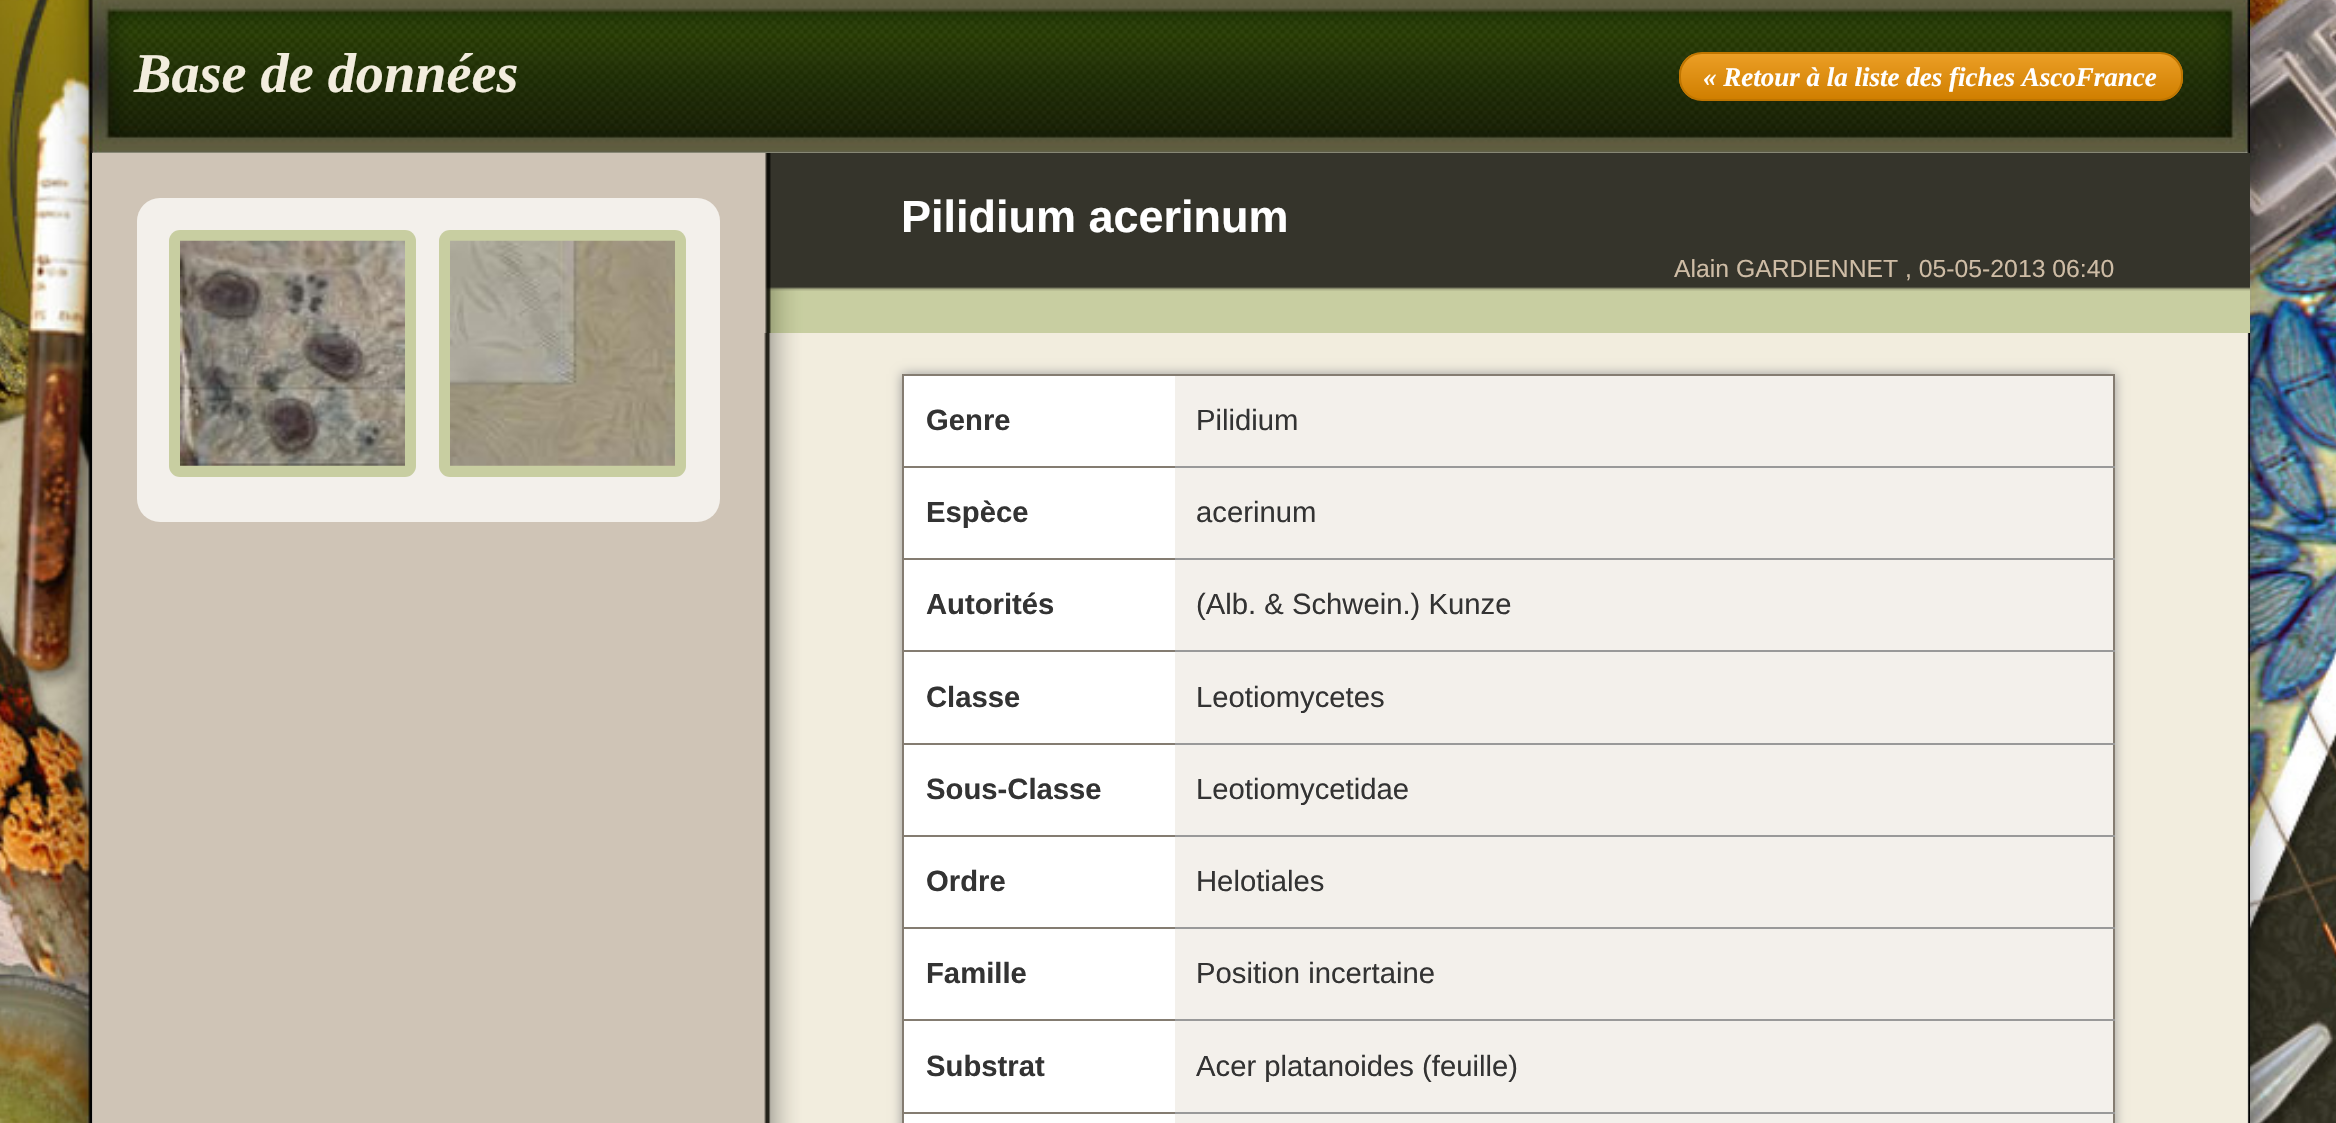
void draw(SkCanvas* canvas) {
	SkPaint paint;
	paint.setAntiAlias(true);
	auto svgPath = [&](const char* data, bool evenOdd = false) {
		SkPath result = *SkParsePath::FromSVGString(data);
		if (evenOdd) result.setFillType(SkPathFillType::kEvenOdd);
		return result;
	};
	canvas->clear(0xffffffff);
	canvas->drawImageRect(SkImages::DeferredFromEncodedData(SkData::MakeFromFileName("img1.png")), SkRect::MakeXYWH(0, 0, 2336, 1123), SkSamplingOptions());
	canvas->drawImageRect(SkImages::DeferredFromEncodedData(SkData::MakeFromFileName("img2.png")), SkRect::MakeXYWH(90, 0, 2160, 1123), SkSamplingOptions());
	SkFont f1(fontMgr->matchFamilyStyle("Liberation Serif", SkFontStyle::BoldItalic()), 56.25);
	f1.setSubpixel(true);
	paint.setColor(0xfff2edde);
	canvas->drawString("Base de données", 134, 92, f1, paint);
	canvas->save();
	canvas->clipPath(svgPath("M1702 52H2160C2172.5 52 2183 62.5 2183 75V78C2183 90.5 2172.5 101 2160 101H1702C1689.5 101 1679 90.5 1679 78V75C1679 62.5 1689.5 52 1702 52Z"), true);
	{
		const SkColor colors[] = {0xffeb9e25, 0xffd07f00};
		const float stops[] = {0, 1};
		const SkPoint ends[] = {{1681, 54}, {1681, 99}};
		paint.setShader(SkGradientShader::MakeLinear(ends, colors, stops, 2, SkTileMode::kClamp));
		paint.setAlpha(255);
	}
	canvas->drawRect(SkRect::MakeXYWH(1679, 54, 504, 45), paint);
	canvas->restore();
	paint.setStroke(true);
	paint.setStrokeWidth(2);
	paint.setShader(nullptr);
	paint.setColor(0xffbf7500);
	canvas->drawRoundRect(SkRect::MakeXYWH(1680, 53, 502, 47), 22, 22, paint);
	SkFont f2(fontMgr->matchFamilyStyle("Liberation Serif", SkFontStyle::BoldItalic()), 27);
	f2.setSubpixel(true);
	paint.setStroke(false);
	paint.setColor(0xffffffff);
	canvas->drawString("« Retour à la liste des fiches AscoFrance", 1703, 86, f2, paint);
	canvas->drawImageRect(SkImages::DeferredFromEncodedData(SkData::MakeFromFileName("img3.png")), SkRect::MakeXYWH(92, 153, 2156, 970), SkSamplingOptions());
	paint.setColor(0xff000000);
	canvas->drawRect(SkRect::MakeXYWH(90, 153, 2, 970), paint);
	canvas->drawImageRect(SkImages::DeferredFromEncodedData(SkData::MakeFromFileName("img4.png")), SkRect::MakeXYWH(92, 153, 2158, 180), SkSamplingOptions());
	paint.setColor(0xfff3f0eb);
	canvas->drawRoundRect(SkRect::MakeXYWH(137, 198, 583, 324), 23, 23, paint);
	paint.setColor(0xffc8cea1);
	canvas->drawRoundRect(SkRect::MakeXYWH(169, 230, 247, 247), 11, 11, paint);
	canvas->drawImageRect(SkImages::DeferredFromEncodedData(SkData::MakeFromFileName("img5.png")), SkRect::MakeXYWH(180, 240, 225, 226), SkSamplingOptions());
	canvas->drawRoundRect(SkRect::MakeXYWH(439, 230, 247, 247), 11, 11, paint);
	canvas->drawImageRect(SkImages::DeferredFromEncodedData(SkData::MakeFromFileName("img6.png")), SkRect::MakeXYWH(450, 240, 225, 226), SkSamplingOptions());
	SkFont f3(fontMgr->matchFamilyStyle("Liberation Sans", SkFontStyle::Bold()), 45);
	f3.setSubpixel(true);
	paint.setColor(0xffffffff);
	canvas->drawString("Pilidium acerinum", 901, 232, f3, paint);
	SkFont f4(fontMgr->matchFamilyStyle("Liberation Sans", SkFontStyle::Normal()), 24.75);
	f4.setSubpixel(true);
	paint.setColor(0xffcebca5);
	canvas->drawString("Alain GARDIENNET , 05-05-2013 06:40", 1674, 277, f4, paint);
	paint.setColor(0xff999999);
	paint.setMaskFilter(SkMaskFilter::MakeBlur(kNormal_SkBlurStyle, 5.5));
	canvas->drawRect(SkRect::MakeXYWH(902, 374, 1213, 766), paint);
	paint.setMaskFilter(nullptr);
	paint.setColor(0xfff3f0eb);
	canvas->drawRect(SkRect::MakeXYWH(1175, 376, 938, 747), paint);
	paint.setColor(0xff847c71);
	canvas->drawRect(SkRect::MakeXYWH(902, 374, 1213, 2), paint);
	canvas->drawRect(SkRect::MakeXYWH(2113, 374, 2, 749), paint);
	canvas->drawRect(SkRect::MakeXYWH(902, 374, 2, 749), paint);
	paint.setColor(0xff999999);
	canvas->drawRect(SkRect::MakeXYWH(1175, 466, 940, 2), paint);
	paint.setColor(0xffffffff);
	canvas->drawRect(SkRect::MakeXYWH(904, 376, 271, 90), paint);
	SkFont f5(fontMgr->matchFamilyStyle("Liberation Sans", SkFontStyle::Bold()), 29.25);
	f5.setSubpixel(true);
	paint.setColor(0xff333333);
	canvas->drawString("Genre", 926, 430, f5, paint);
	SkFont f6(fontMgr->matchFamilyStyle("Liberation Sans", SkFontStyle::Normal()), 29.25);
	f6.setSubpixel(true);
	canvas->drawString("Pilidium", 1196, 430, f6, paint);
	paint.setColor(0xff999999);
	canvas->drawRect(SkRect::MakeXYWH(1175, 558, 940, 2), paint);
	paint.setColor(0xffffffff);
	canvas->drawRect(SkRect::MakeXYWH(904, 468, 271, 90), paint);
	paint.setColor(0xff847c71);
	canvas->drawRect(SkRect::MakeXYWH(902, 466, 273, 2), paint);
	paint.setColor(0xff333333);
	canvas->drawString("Espèce", 926, 522, f5, paint);
	canvas->drawString("acerinum", 1196, 522, f6, paint);
	paint.setColor(0xff999999);
	canvas->drawRect(SkRect::MakeXYWH(1175, 650, 940, 2), paint);
	paint.setColor(0xffffffff);
	canvas->drawRect(SkRect::MakeXYWH(904, 560, 271, 183), paint);
	paint.setColor(0xff847c71);
	canvas->drawRect(SkRect::MakeXYWH(902, 558, 273, 2), paint);
	paint.setColor(0xff333333);
	canvas->drawString("Autorités", 926, 614, f5, paint);
	canvas->drawString("(Alb. & Schwein.) Kunze", 1196, 614, f6, paint);
	paint.setColor(0xff999999);
	canvas->drawRect(SkRect::MakeXYWH(1175, 743, 940, 2), paint);
	paint.setColor(0xff847c71);
	canvas->drawRect(SkRect::MakeXYWH(902, 650, 273, 2), paint);
	paint.setColor(0xff333333);
	canvas->drawString("Classe", 926, 707, f5, paint);
	canvas->drawString("Leotiomycetes", 1196, 707, f6, paint);
	paint.setColor(0xff999999);
	canvas->drawRect(SkRect::MakeXYWH(1175, 835, 940, 2), paint);
	paint.setColor(0xffffffff);
	canvas->drawRect(SkRect::MakeXYWH(904, 745, 271, 90), paint);
	paint.setColor(0xff847c71);
	canvas->drawRect(SkRect::MakeXYWH(902, 743, 273, 2), paint);
	paint.setColor(0xff333333);
	canvas->drawString("Sous-Classe", 926, 799, f5, paint);
	canvas->drawString("Leotiomycetidae", 1196, 799, f6, paint);
	paint.setColor(0xff999999);
	canvas->drawRect(SkRect::MakeXYWH(1175, 927, 940, 2), paint);
	paint.setColor(0xffffffff);
	canvas->drawRect(SkRect::MakeXYWH(904, 837, 271, 90), paint);
	paint.setColor(0xff847c71);
	canvas->drawRect(SkRect::MakeXYWH(902, 835, 273, 2), paint);
	paint.setColor(0xff333333);
	canvas->drawString("Ordre", 926, 891, f5, paint);
	canvas->drawString("Helotiales", 1196, 891, f6, paint);
	paint.setColor(0xff999999);
	canvas->drawRect(SkRect::MakeXYWH(1175, 1019, 940, 2), paint);
	paint.setColor(0xffffffff);
	canvas->drawRect(SkRect::MakeXYWH(904, 929, 271, 183), paint);
	paint.setColor(0xff847c71);
	canvas->drawRect(SkRect::MakeXYWH(902, 927, 273, 2), paint);
	paint.setColor(0xff333333);
	canvas->drawString("Famille", 926, 983, f5, paint);
	canvas->drawString("Position incertaine", 1196, 983, f6, paint);
	paint.setColor(0xff999999);
	canvas->drawRect(SkRect::MakeXYWH(1175, 1112, 940, 2), paint);
	paint.setColor(0xff847c71);
	canvas->drawRect(SkRect::MakeXYWH(902, 1019, 273, 2), paint);
	paint.setColor(0xff333333);
	canvas->drawString("Substrat", 926, 1076, f5, paint);
	canvas->drawString("Acer platanoides (feuille)", 1196, 1076, f6, paint);
	paint.setColor(0xffffffff);
	canvas->drawRect(SkRect::MakeXYWH(904, 1114, 271, 9), paint);
	paint.setColor(0xff847c71);
	canvas->drawRect(SkRect::MakeXYWH(902, 1112, 273, 2), paint);
}
